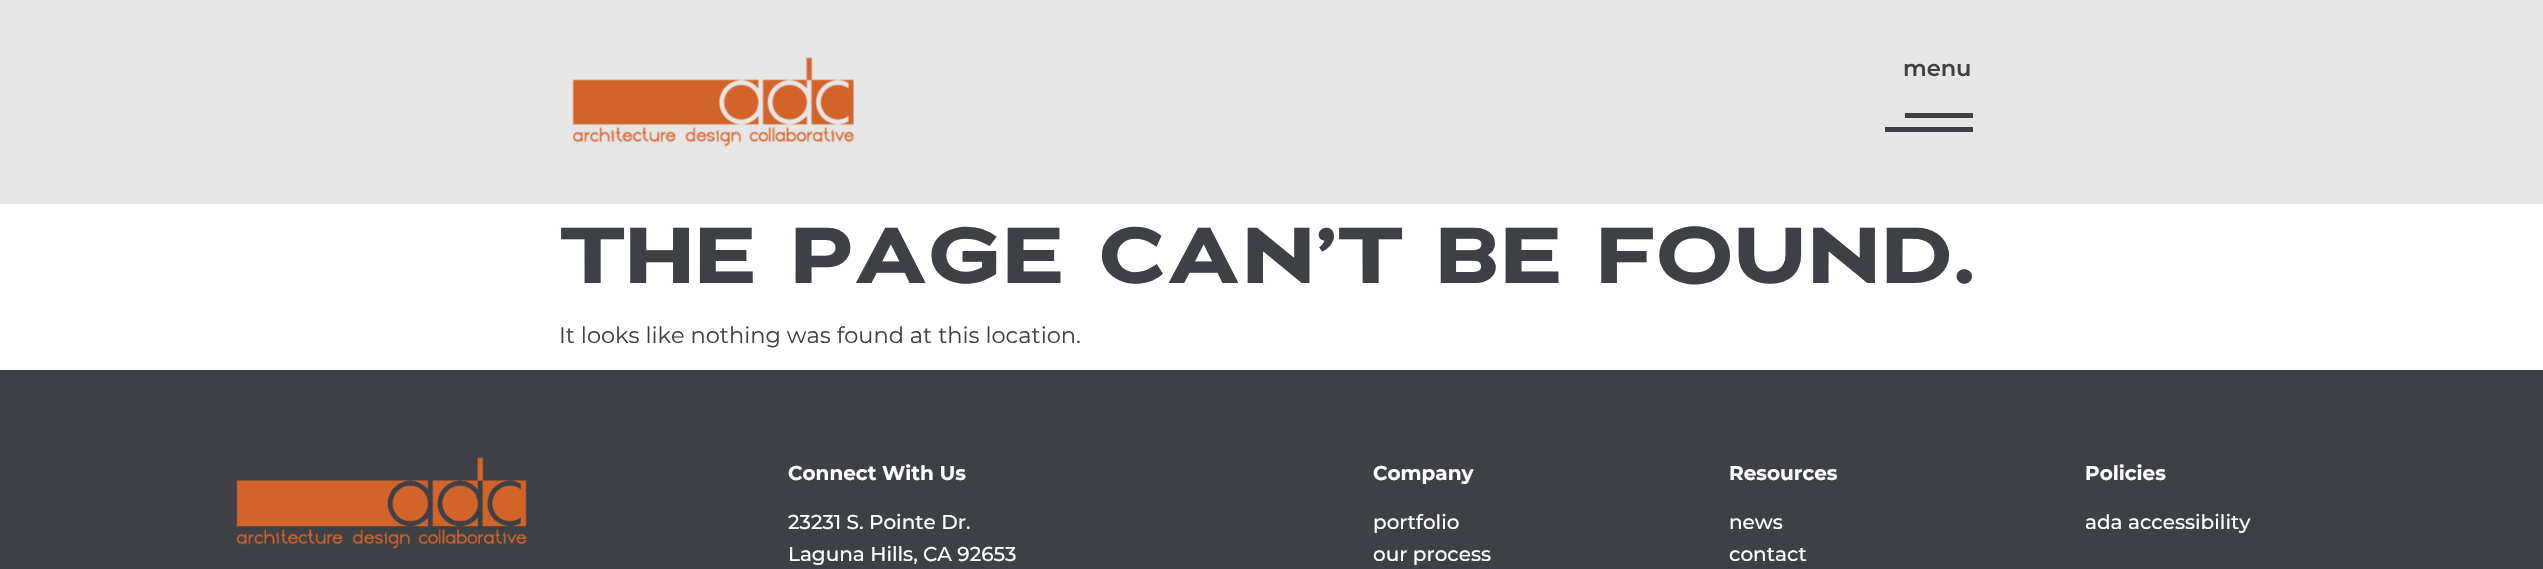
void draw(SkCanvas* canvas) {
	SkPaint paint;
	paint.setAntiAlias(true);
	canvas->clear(0xffffffff);
	paint.setColor(0xffe6e6e6);
	canvas->drawRect(SkRect::MakeXYWH(0, 0, 2543, 204), paint);
	canvas->drawImageRect(SkImages::DeferredFromEncodedData(SkData::MakeFromFileName("img1.png")), SkRect::MakeXYWH(572, 57, 282, 90), SkSamplingOptions());
	SkFont f1(fontMgr->matchFamilyStyle("Montserrat", SkFontStyle(600, SkFontStyle::kNormal_Width, SkFontStyle::kUpright_Slant)), 22.5);
	f1.setSubpixel(true);
	paint.setColor(0xff3d4045);
	canvas->drawString("menu", 1903, 76, f1, paint);
	canvas->drawRect(SkRect::MakeXYWH(1905, 113, 68, 5), paint);
	canvas->drawRect(SkRect::MakeXYWH(1885, 127, 88, 5), paint);
	SkFont f2(fontMgr->matchFamilyStyle("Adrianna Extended", SkFontStyle::Bold()), 78.75);
	f2.setSubpixel(true);
	canvas->drawString("THE PAGE CAN’T BE FOUND.", 559, 283, f2, paint);
	SkFont f3(fontMgr->matchFamilyStyle("Montserrat", SkFontStyle::Normal()), 22.5);
	f3.setSubpixel(true);
	canvas->drawString("It looks like nothing was found at this location.", 559, 343, f3, paint);
	canvas->drawRect(SkRect::MakeXYWH(0, 370, 2543, 199), paint);
	canvas->drawImageRect(SkImages::DeferredFromEncodedData(SkData::MakeFromFileName("img2.png")), SkRect::MakeXYWH(236, 457, 291, 92), SkSamplingOptions());
	SkFont f4(fontMgr->matchFamilyStyle("Montserrat", SkFontStyle::Bold()), 20);
	f4.setSubpixel(true);
	paint.setColor(0xffffffff);
	canvas->drawString("Connect With Us", 788, 480, f4, paint);
	SkFont f5(fontMgr->matchFamilyStyle("Montserrat", SkFontStyle(500, SkFontStyle::kNormal_Width, SkFontStyle::kUpright_Slant)), 20);
	f5.setSubpixel(true);
	canvas->drawString("23231 S. Pointe Dr.", 788, 529, f5, paint);
	canvas->drawString("Laguna Hills, CA 92653", 788, 561, f5, paint);
	canvas->drawString("Company", 1373, 480, f4, paint);
	canvas->drawString("portfolio", 1373, 529, f5, paint);
	canvas->drawString("our process", 1373, 561, f5, paint);
	canvas->drawString("Resources", 1729, 480, f4, paint);
	canvas->drawString("news", 1729, 529, f5, paint);
	canvas->drawString("contact", 1729, 561, f5, paint);
	canvas->drawString("Policies", 2085, 480, f4, paint);
	canvas->drawString("ada accessibility", 2085, 529, f5, paint);
}
